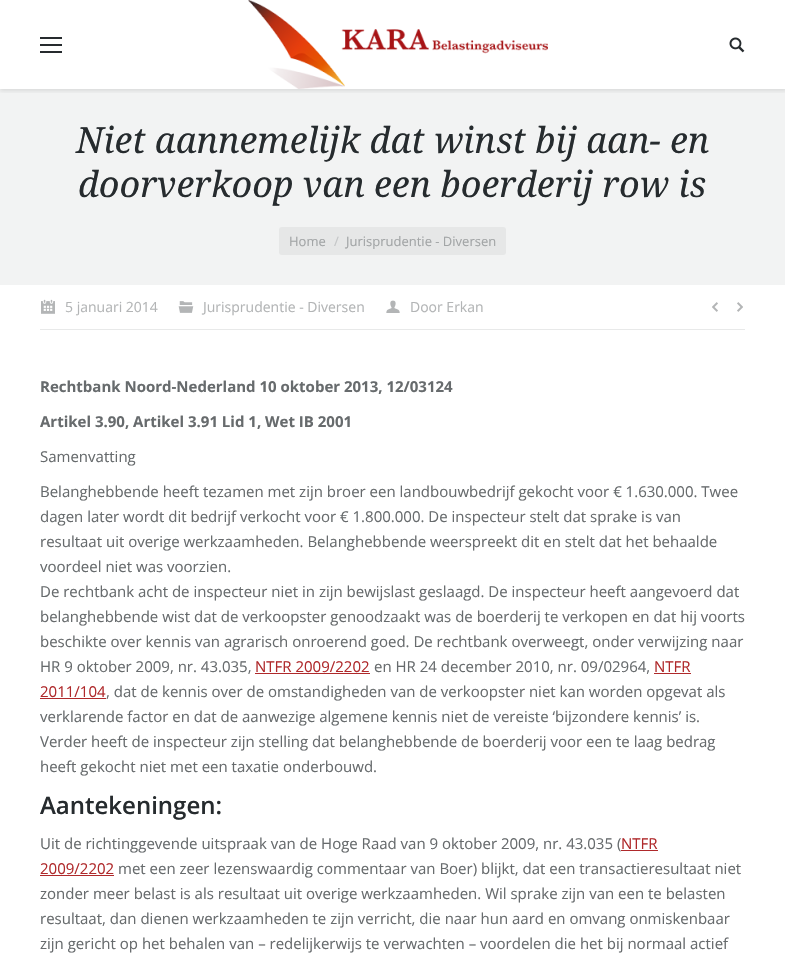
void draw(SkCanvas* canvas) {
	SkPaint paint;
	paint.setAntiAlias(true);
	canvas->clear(0xffffffff);
	paint.setColor(0xfff2f3f3);
	canvas->drawRect(SkRect::MakeXYWH(0, 89, 785, 196), paint);
	canvas->save();
	canvas->clipRect(SkRect::MakeXYWH(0, 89, 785, 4));
	paint.setColor(0x1a000000);
	paint.setMaskFilter(SkMaskFilter::MakeBlur(kNormal_SkBlurStyle, 2));
	canvas->drawRect(SkRect::MakeXYWH(0, 0, 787, 91), paint);
	paint.setMaskFilter(nullptr);
	canvas->restore();
	paint.setColor(0xff262b2e);
	canvas->drawRect(SkRect::MakeXYWH(40, 44, 22, 2), paint);
	canvas->drawRect(SkRect::MakeXYWH(40, 37, 22, 2), paint);
	canvas->drawRect(SkRect::MakeXYWH(40, 51, 22, 2), paint);
	canvas->drawImageRect(SkImages::DeferredFromEncodedData(SkData::MakeFromFileName("img1.png")), SkRect::MakeXYWH(248, 0, 300, 89), SkSamplingOptions());
	canvas->drawImageRect(SkImages::DeferredFromEncodedData(SkData::MakeFromFileName("img2.png")), SkRect::MakeXYWH(729, 37, 16, 16), SkSamplingOptions());
	SkFont f1(fontMgr->matchFamilyStyle("Droid Serif", SkFontStyle::Italic()), 36);
	f1.setSubpixel(true);
	canvas->drawString("Niet aannemelijk dat winst bij aan- en", 76, 153, f1, paint);
	canvas->drawString("doorverkoop van een boerderij row is", 78, 197, f1, paint);
	paint.setColor(0xffe6e7e7);
	canvas->drawRoundRect(SkRect::MakeXYWH(279, 227, 227, 28), 3, 3, paint);
	SkFont f2(fontMgr->matchFamilyStyle("Open Sans", SkFontStyle::Normal()), 13);
	f2.setSubpixel(true);
	paint.setColor(0xffa2a5a6);
	canvas->drawString("Home", 289, 246, f2, paint);
	paint.setColor(0xffc4c6c7);
	canvas->drawString("/", 334, 246, f2, paint);
	paint.setColor(0xffa2a5a6);
	canvas->drawString("Jurisprudentie - Diversen", 346, 246, f2, paint);
	paint.setColor(0xffe8e9e9);
	canvas->drawRect(SkRect::MakeXYWH(40, 329, 705, 1), paint);
	canvas->drawImageRect(SkImages::DeferredFromEncodedData(SkData::MakeFromFileName("img3.png")), SkRect::MakeXYWH(41, 299, 14, 15), SkSamplingOptions());
	SkFont f3(fontMgr->matchFamilyStyle("Open Sans", SkFontStyle::Normal()), 14);
	f3.setSubpixel(true);
	paint.setColor(0xffb3b5b6);
	canvas->drawString("5 januari 2014", 65, 312, f3, paint);
	canvas->drawImageRect(SkImages::DeferredFromEncodedData(SkData::MakeFromFileName("img4.png")), SkRect::MakeXYWH(178, 301, 16, 12), SkSamplingOptions());
	canvas->drawString("Jurisprudentie - Diversen", 203, 312, f3, paint);
	canvas->drawImageRect(SkImages::DeferredFromEncodedData(SkData::MakeFromFileName("img5.png")), SkRect::MakeXYWH(386, 300, 14, 13), SkSamplingOptions());
	canvas->drawString("Door Erkan", 410, 312, f3, paint);
	canvas->drawImageRect(SkImages::DeferredFromEncodedData(SkData::MakeFromFileName("img6.png")), SkRect::MakeXYWH(712, 302, 6, 10), SkSamplingOptions());
	canvas->drawImageRect(SkImages::DeferredFromEncodedData(SkData::MakeFromFileName("img7.png")), SkRect::MakeXYWH(737, 302, 6, 10), SkSamplingOptions());
	SkFont f4(fontMgr->matchFamilyStyle("Open Sans", SkFontStyle::Bold()), 15);
	f4.setSubpixel(true);
	paint.setColor(0xff676b6d);
	canvas->drawString("Rechtbank Noord-Nederland 10 oktober 2013, 12/03124", 40, 392, f4, paint);
	canvas->drawString("Artikel 3.90, Artikel 3.91 Lid 1, Wet IB 2001", 40, 427, f4, paint);
	SkFont f5(fontMgr->matchFamilyStyle("Open Sans", SkFontStyle::Normal()), 15);
	f5.setSubpixel(true);
	canvas->drawString("Samenvatting", 40, 462, f5, paint);
	canvas->drawString("Belanghebbende heeft tezamen met zijn broer een landbouwbedrijf gekocht voor € 1.630.000. Twee", 40, 497, f5, paint);
	canvas->drawString("dagen later wordt dit bedrijf verkocht voor € 1.800.000. De inspecteur stelt dat sprake is van", 40, 522, f5, paint);
	canvas->drawString("resultaat uit overige werkzaamheden. Belanghebbende weerspreekt dit en stelt dat het behaalde", 40, 547, f5, paint);
	canvas->drawString("voordeel niet was voorzien.", 40, 572, f5, paint);
	canvas->drawString("De rechtbank acht de inspecteur niet in zijn bewijslast geslaagd. De inspecteur heeft aangevoerd dat", 40, 597, f5, paint);
	canvas->drawString("belanghebbende wist dat de verkoopster genoodzaakt was de boerderij te verkopen en dat hij voorts", 40, 622, f5, paint);
	canvas->drawString("beschikte over kennis van agrarisch onroerend goed. De rechtbank overweegt, onder verwijzing naar", 40, 647, f5, paint);
	canvas->drawString("HR 9 oktober 2009, nr. 43.035,", 40, 672, f5, paint);
	paint.setColor(0xffaf292b);
	canvas->drawString("NTFR 2009/2202", 255, 672, f5, paint);
	canvas->drawRect(SkRect::MakeXYWH(255, 673, 115, 1), paint);
	paint.setColor(0xff676b6d);
	canvas->drawString("en HR 24 december 2010, nr. 09/02964,", 374, 672, f5, paint);
	paint.setColor(0xffaf292b);
	canvas->drawString("NTFR", 654, 672, f5, paint);
	canvas->drawRect(SkRect::MakeXYWH(654, 673, 37, 1), paint);
	canvas->drawString("2011/104", 40, 697, f5, paint);
	canvas->drawRect(SkRect::MakeXYWH(40, 698, 66, 1), paint);
	paint.setColor(0xff676b6d);
	canvas->drawString(", dat de kennis over de omstandigheden van de verkoopster niet kan worden opgevat als", 106, 697, f5, paint);
	canvas->drawString("verklarende factor en dat de aanwezige algemene kennis niet de vereiste ‘bijzondere kennis’ is.", 40, 722, f5, paint);
	canvas->drawString("Verder heeft de inspecteur zijn stelling dat belanghebbende de boerderij voor een te laag bedrag", 40, 747, f5, paint);
	canvas->drawString("heeft gekocht niet met een taxatie onderbouwd.", 40, 772, f5, paint);
	SkFont f6(fontMgr->matchFamilyStyle("Open Sans", SkFontStyle(600, SkFontStyle::kNormal_Width, SkFontStyle::kUpright_Slant)), 24);
	f6.setSubpixel(true);
	paint.setColor(0xff262b2e);
	canvas->drawString("Aantekeningen:", 40, 814, f6, paint);
	paint.setColor(0xff676b6d);
	canvas->drawString("Uit de richtinggevende uitspraak van de Hoge Raad van 9 oktober 2009, nr. 43.035 (", 40, 849, f5, paint);
	paint.setColor(0xffaf292b);
	canvas->drawString("NTFR", 621, 849, f5, paint);
	canvas->drawRect(SkRect::MakeXYWH(621, 850, 37, 1), paint);
	canvas->drawString("2009/2202", 40, 874, f5, paint);
	canvas->drawRect(SkRect::MakeXYWH(40, 875, 74, 1), paint);
	paint.setColor(0xff676b6d);
	canvas->drawString("met een zeer lezenswaardig commentaar van Boer) blijkt, dat een transactieresultaat niet", 118, 874, f5, paint);
	canvas->drawString("zonder meer belast is als resultaat uit overige werkzaamheden. Wil sprake zijn van een te belasten", 40, 899, f5, paint);
	canvas->drawString("resultaat, dan dienen werkzaamheden te zijn verricht, die naar hun aard en omvang onmiskenbaar", 40, 924, f5, paint);
	canvas->drawString("zijn gericht op het behalen van – redelijkerwijs te verwachten – voordelen die het bij normaal actief", 40, 949, f5, paint);
}
